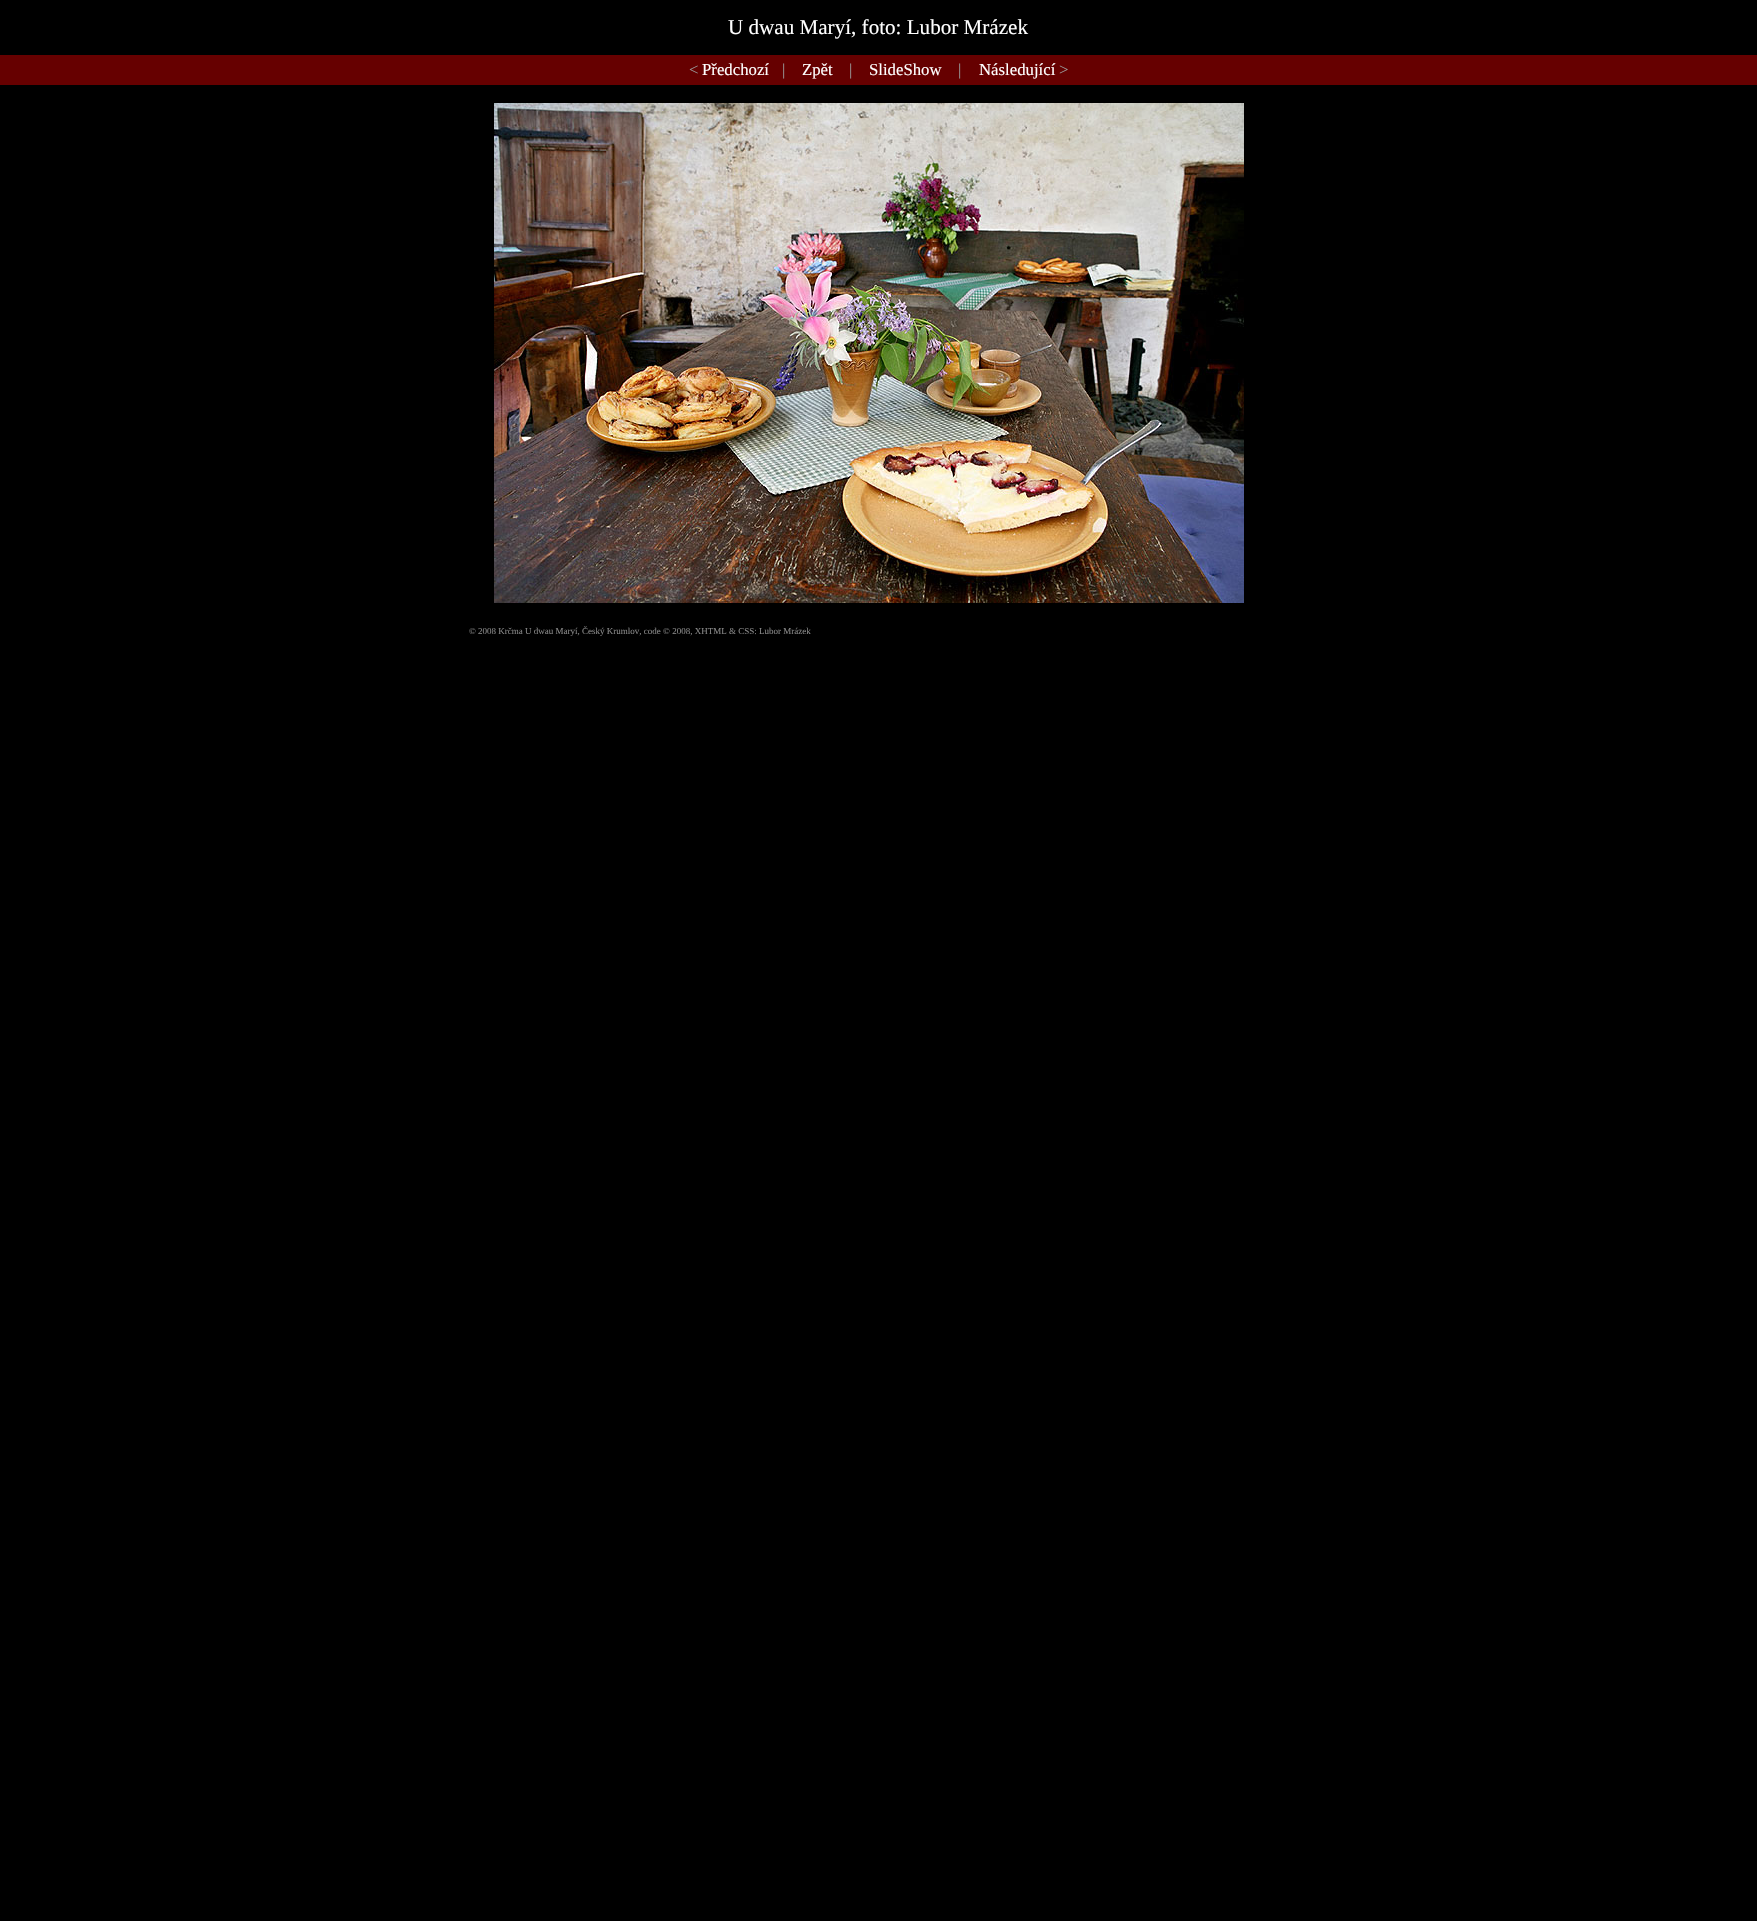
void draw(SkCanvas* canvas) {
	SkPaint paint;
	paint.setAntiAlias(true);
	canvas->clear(0xff000000);
	SkFont f1(fontMgr->matchFamilyStyle("Liberation Serif", SkFontStyle::Normal()), 21.1);
	f1.setSubpixel(true);
	paint.setColor(0xffffffff);
	canvas->drawString("U dwau Maryí, foto: Lubor Mrázek", 728, 34, f1, paint);
	paint.setColor(0xff660000);
	canvas->drawRect(SkRect::MakeXYWH(0, 55, 1757, 30), paint);
	SkFont f2(fontMgr->matchFamilyStyle("Liberation Serif", SkFontStyle::Normal()), 16.75);
	f2.setSubpixel(true);
	paint.setColor(0xff999999);
	canvas->drawString("<", 689, 75, f2, paint);
	paint.setColor(0xffffffff);
	canvas->drawString("Předchozí", 702, 75, f2, paint);
	paint.setColor(0xff999999);
	canvas->drawString("|", 782, 75, f2, paint);
	paint.setColor(0xffffffff);
	canvas->drawString("Zpět", 802, 75, f2, paint);
	paint.setColor(0xff999999);
	canvas->drawString("|", 849, 75, f2, paint);
	paint.setColor(0xffffffff);
	canvas->drawString("SlideShow", 869, 75, f2, paint);
	paint.setColor(0xff999999);
	canvas->drawString("|", 958, 75, f2, paint);
	paint.setColor(0xffffffff);
	canvas->drawString("Následující", 979, 75, f2, paint);
	paint.setColor(0xff999999);
	canvas->drawString(">", 1059, 75, f2, paint);
	canvas->drawImageRect(SkImages::DeferredFromEncodedData(SkData::MakeFromFileName("img1.png")), SkRect::MakeXYWH(494, 103, 750, 500), SkSamplingOptions());
	SkFont f3(fontMgr->matchFamilyStyle("Liberation Serif", SkFontStyle::Normal()), 9);
	f3.setSubpixel(true);
	paint.setColor(0xff888888);
	canvas->drawString("© 2008 Krčma U dwau Maryí, Český Krumlov, code © 2008, XHTML & CSS: Lubor Mrázek", 469, 634, f3, paint);
}
